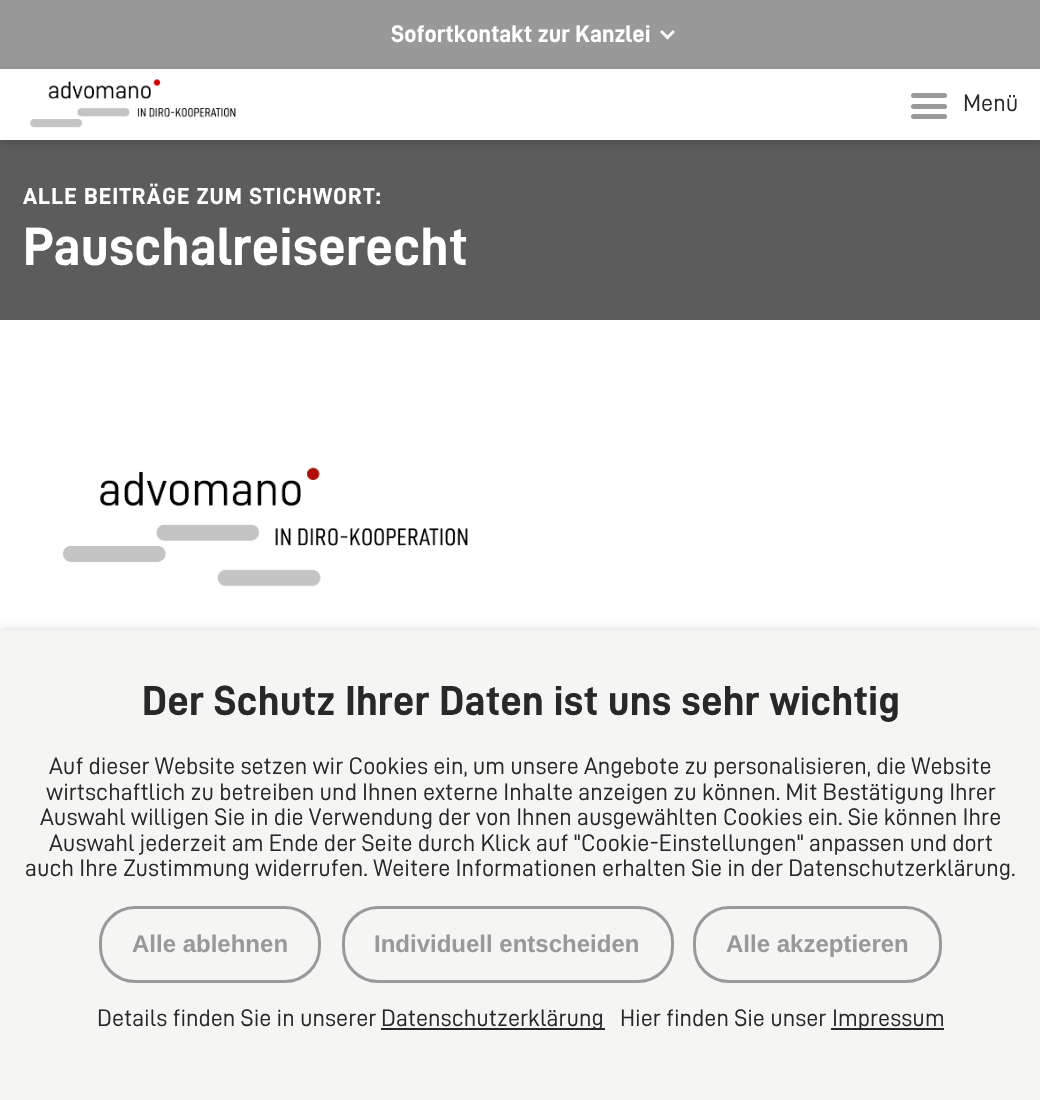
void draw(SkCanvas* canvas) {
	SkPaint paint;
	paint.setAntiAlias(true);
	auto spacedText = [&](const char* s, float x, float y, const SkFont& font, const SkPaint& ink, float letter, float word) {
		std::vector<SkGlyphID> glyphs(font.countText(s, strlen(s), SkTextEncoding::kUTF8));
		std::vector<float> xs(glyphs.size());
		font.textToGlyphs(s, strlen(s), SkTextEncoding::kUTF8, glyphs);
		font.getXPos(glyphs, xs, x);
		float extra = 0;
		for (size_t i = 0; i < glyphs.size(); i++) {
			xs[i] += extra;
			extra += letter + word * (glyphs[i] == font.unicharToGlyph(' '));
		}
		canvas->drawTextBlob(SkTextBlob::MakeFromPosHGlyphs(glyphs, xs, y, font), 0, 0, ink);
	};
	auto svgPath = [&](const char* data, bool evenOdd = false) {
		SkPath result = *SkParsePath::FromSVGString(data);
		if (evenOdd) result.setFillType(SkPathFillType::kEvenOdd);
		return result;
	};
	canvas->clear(0xffffffff);
	paint.setColor(0xff999999);
	canvas->drawRect(SkRect::MakeXYWH(0, 0, 1040, 69), paint);
	SkFont f1(fontMgr->matchFamilyStyle("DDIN", SkFontStyle::Bold()), 24);
	f1.setSubpixel(true);
	paint.setColor(0xffffffff);
	canvas->drawString("Sofortkontakt zur Kanzlei", 391, 42, f1, paint);
	canvas->drawPath(svgPath("M673 30L675 32L667.5 39.5L665.5 37.5Z"), paint);
	canvas->drawPath(svgPath("M662 30L669.5 37.5L667.5 39.5L660 32Z"), paint);
	paint.setColor(0xff5c5c5c);
	canvas->drawRect(SkRect::MakeXYWH(0, 140, 1040, 180), paint);
	paint.setColor(0x29000000);
	paint.setMaskFilter(SkMaskFilter::MakeBlur(kNormal_SkBlurStyle, 4.5));
	canvas->drawRect(SkRect::MakeXYWH(0, 72, 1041, 71), paint);
	paint.setMaskFilter(nullptr);
	paint.setColor(0xffffffff);
	canvas->drawRect(SkRect::MakeXYWH(0, 69, 1040, 71), paint);
	canvas->drawImageRect(SkImages::DeferredFromEncodedData(SkData::MakeFromFileName("img1.png")), SkRect::MakeXYWH(29, 79, 207, 49), SkSamplingOptions());
	paint.setColor(0xff999999);
	canvas->drawRoundRect(SkRect::MakeXYWH(911, 93, 36, 5), 2.5, 2.5, paint);
	SkFont f2(fontMgr->matchFamilyStyle("DDIN", SkFontStyle::Normal()), 24);
	f2.setSubpixel(true);
	paint.setColor(0xff282828);
	canvas->drawString("Menü", 963, 111, f2, paint);
	paint.setColor(0xff999999);
	canvas->drawRoundRect(SkRect::MakeXYWH(911, 104, 36, 5), 2.5, 2.5, paint);
	canvas->drawRoundRect(SkRect::MakeXYWH(911, 114, 36, 5), 2.5, 2.5, paint);
	SkFont f3(fontMgr->matchFamilyStyle("DDIN", SkFontStyle::Bold()), 23.3);
	f3.setSubpixel(true);
	paint.setColor(0xffffffff);
	spacedText("ALLE BEITRÄGE ZUM STICHWORT:", 23, 204, f3, paint, 1, 0);
	SkFont f4(fontMgr->matchFamilyStyle("DDIN", SkFontStyle::Bold()), 54);
	f4.setSubpixel(true);
	canvas->drawString("Pauschalreiserecht", 23, 265, f4, paint);
	canvas->drawImageRect(SkImages::DeferredFromEncodedData(SkData::MakeFromFileName("img2.png")), SkRect::MakeXYWH(62, 467, 406, 120), SkSamplingOptions());
	paint.setColor(0x29000000);
	paint.setMaskFilter(SkMaskFilter::MakeBlur(kNormal_SkBlurStyle, 4.5));
	canvas->drawRect(SkRect::MakeXYWH(0, 630, 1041, 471), paint);
	paint.setMaskFilter(nullptr);
	paint.setColor(0xfff5f5f4);
	canvas->drawRect(SkRect::MakeXYWH(0, 630, 1040, 470), paint);
	SkFont f5(fontMgr->matchFamilyStyle("DDIN", SkFontStyle::Bold()), 42);
	f5.setSubpixel(true);
	paint.setColor(0xff282828);
	canvas->drawString("Der Schutz Ihrer Daten ist uns sehr wichtig", 142, 715, f5, paint);
	canvas->drawString("Auf dieser Website setzen wir Cookies ein, um unsere Angebote zu personalisieren, die Website", 49, 774, f2, paint);
	canvas->drawString("wirtschaftlich zu betreiben und Ihnen externe Inhalte anzeigen zu können. Mit Bestätigung Ihrer", 46, 800, f2, paint);
	canvas->drawString("Auswahl willigen Sie in die Verwendung der von Ihnen ausgewählten Cookies ein. Sie können Ihre", 40, 825, f2, paint);
	canvas->drawString("Auswahl jederzeit am Ende der Seite durch Klick auf \"Cookie-Einstellungen\" anpassen und dort", 49, 851, f2, paint);
	canvas->drawString("auch Ihre Zustimmung widerrufen. Weitere Informationen erhalten Sie in der Datenschutzerklärung.", 25, 876, f2, paint);
	paint.setStroke(true);
	paint.setStrokeWidth(3);
	paint.setColor(0xff999999);
	canvas->drawRoundRect(SkRect::MakeXYWH(100.5, 907.5, 219, 74), 34.5, 34.5, paint);
	SkFont f6(fontMgr->matchFamilyStyle("Liberation Sans", SkFontStyle::Bold()), 24);
	f6.setSubpixel(true);
	paint.setStroke(false);
	canvas->drawString("Alle ablehnen", 132, 952, f6, paint);
	paint.setStroke(true);
	canvas->drawRoundRect(SkRect::MakeXYWH(343.5, 907.5, 329, 74), 34.5, 34.5, paint);
	paint.setStroke(false);
	canvas->drawString("Individuell entscheiden", 374, 952, f6, paint);
	paint.setStroke(true);
	canvas->drawRoundRect(SkRect::MakeXYWH(694.5, 907.5, 246, 74), 34.5, 34.5, paint);
	paint.setStroke(false);
	canvas->drawString("Alle akzeptieren", 726, 952, f6, paint);
	paint.setColor(0xff282828);
	canvas->drawString("Details finden Sie in unserer", 97, 1026, f2, paint);
	canvas->drawRect(SkRect::MakeXYWH(381, 1028, 224, 2), paint);
	canvas->drawString("Datenschutzerklärung", 381, 1026, f2, paint);
	canvas->drawString("Hier finden Sie unser", 620, 1026, f2, paint);
	canvas->drawRect(SkRect::MakeXYWH(831, 1028, 113, 2), paint);
	canvas->drawString("Impressum", 832, 1026, f2, paint);
}
